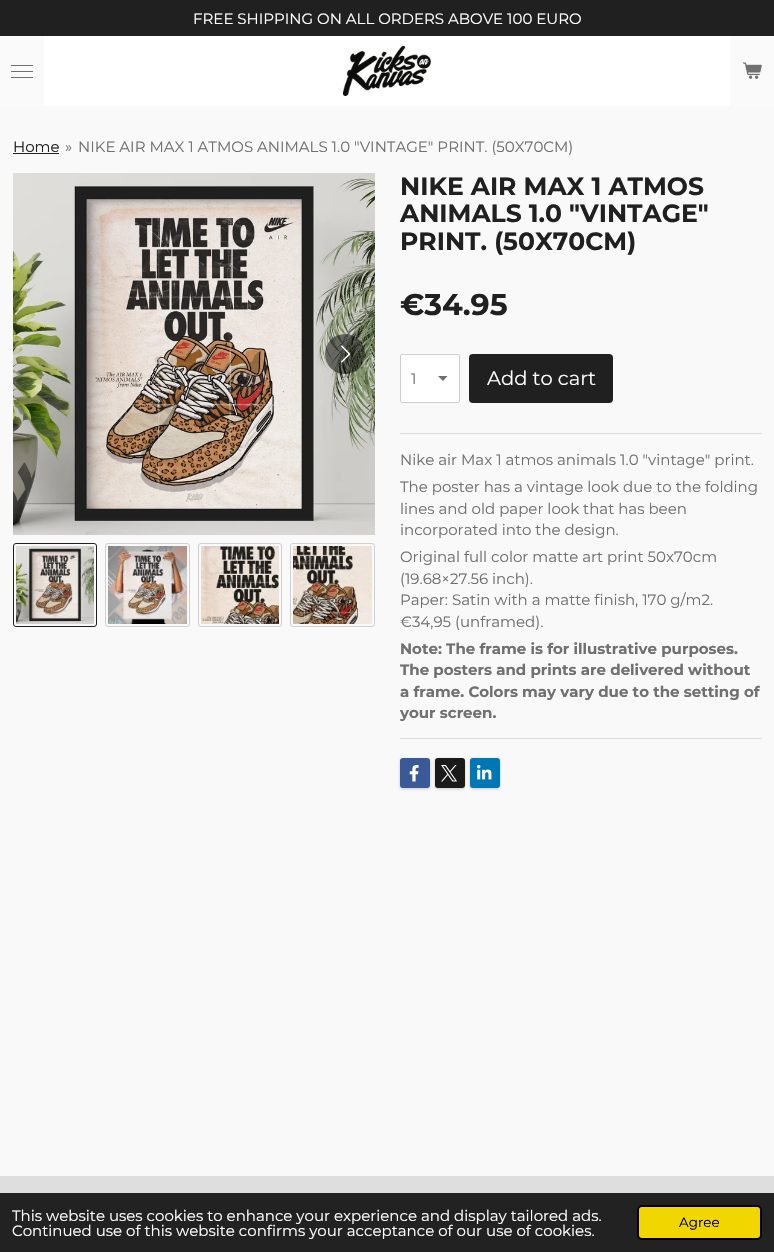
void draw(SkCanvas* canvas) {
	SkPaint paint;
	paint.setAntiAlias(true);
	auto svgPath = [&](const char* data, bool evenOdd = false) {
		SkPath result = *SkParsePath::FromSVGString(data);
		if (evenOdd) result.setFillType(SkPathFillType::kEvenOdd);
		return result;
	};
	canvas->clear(0xffffffff);
	paint.setColor(0xff202020);
	canvas->drawRect(SkRect::MakeXYWH(0, 0, 774, 36), paint);
	SkFont f1(fontMgr->matchFamilyStyle("Montserrat", SkFontStyle::Normal()), 15);
	f1.setSubpixel(true);
	paint.setColor(0xffffffff);
	canvas->drawString("FREE SHIPPING ON ALL ORDERS ABOVE 100 EURO", 193, 24, f1, paint);
	paint.setColor(0xfffafafa);
	canvas->drawRect(SkRect::MakeXYWH(0, 36, 44, 70), paint);
	paint.setColor(0xff707070);
	canvas->drawRect(SkRect::MakeXYWH(11, 71, 22, 1), paint);
	canvas->drawRect(SkRect::MakeXYWH(11, 65, 22, 1), paint);
	canvas->drawRect(SkRect::MakeXYWH(11, 77, 22, 1), paint);
	canvas->drawImageRect(SkImages::DeferredFromEncodedData(SkData::MakeFromFileName("img1.png")), SkRect::MakeXYWH(343, 46, 88, 50), SkSamplingOptions());
	paint.setColor(0xfffafafa);
	canvas->drawRect(SkRect::MakeXYWH(730, 36, 44, 70), paint);
	canvas->drawImageRect(SkImages::DeferredFromEncodedData(SkData::MakeFromFileName("img2.png")), SkRect::MakeXYWH(743, 62, 19, 17), SkSamplingOptions());
	paint.setColor(0xfff9f9f9);
	canvas->drawRect(SkRect::MakeXYWH(0, 106, 774, 1070), paint);
	paint.setColor(0xff202020);
	canvas->drawString("Home", 13, 152, f1, paint);
	canvas->drawRect(SkRect::MakeXYWH(13, 153, 46, 1), paint);
	paint.setColor(0xff707070);
	canvas->drawString("»", 65, 152, f1, paint);
	canvas->drawString("NIKE AIR MAX 1 ATMOS ANIMALS 1.0 \"VINTAGE\" PRINT. (50X70CM)", 78, 152, f1, paint);
	canvas->drawImageRect(SkImages::DeferredFromEncodedData(SkData::MakeFromFileName("img3.png")), SkRect::MakeXYWH(13, 173, 362, 362), SkSamplingOptions());
	paint.setColor(0x80000000);
	canvas->drawCircle(345, 354, 20, paint);
	canvas->drawImageRect(SkImages::DeferredFromEncodedData(SkData::MakeFromFileName("img4.png")), SkRect::MakeXYWH(341, 345, 10, 18), SkSamplingOptions());
	paint.setStroke(true);
	paint.setStrokeWidth(1);
	paint.setColor(0xff202020);
	canvas->drawRoundRect(SkRect::MakeXYWH(13.5, 543.5, 83, 83), 2.5, 2.5, paint);
	canvas->drawImageRect(SkImages::DeferredFromEncodedData(SkData::MakeFromFileName("img5.png")), SkRect::MakeXYWH(16, 546, 78, 78), SkSamplingOptions());
	paint.setColor(0xffd0d0d0);
	canvas->drawRoundRect(SkRect::MakeXYWH(105.5, 543.5, 84, 83), 2.5, 2.5, paint);
	canvas->drawImageRect(SkImages::DeferredFromEncodedData(SkData::MakeFromFileName("img6.png")), SkRect::MakeXYWH(108, 546, 79, 78), SkSamplingOptions());
	canvas->drawRoundRect(SkRect::MakeXYWH(198.5, 543.5, 83, 83), 2.5, 2.5, paint);
	canvas->drawImageRect(SkImages::DeferredFromEncodedData(SkData::MakeFromFileName("img7.png")), SkRect::MakeXYWH(201, 546, 78, 78), SkSamplingOptions());
	canvas->drawRoundRect(SkRect::MakeXYWH(290.5, 543.5, 84, 83), 2.5, 2.5, paint);
	canvas->drawImageRect(SkImages::DeferredFromEncodedData(SkData::MakeFromFileName("img8.png")), SkRect::MakeXYWH(293, 546, 79, 78), SkSamplingOptions());
	SkFont f2(fontMgr->matchFamilyStyle("Montserrat", SkFontStyle::Bold()), 25);
	f2.setSubpixel(true);
	paint.setStroke(false);
	paint.setColor(0xff202020);
	canvas->drawString("NIKE AIR MAX 1 ATMOS", 400, 195, f2, paint);
	canvas->drawString("ANIMALS 1.0 \"VINTAGE\"", 400, 222, f2, paint);
	canvas->drawString("PRINT. (50X70CM)", 400, 250, f2, paint);
	SkFont f3(fontMgr->matchFamilyStyle("Montserrat", SkFontStyle::Bold()), 30);
	f3.setSubpixel(true);
	canvas->drawString("€34.95", 400, 315, f3, paint);
	paint.setColor(0xffffffff);
	canvas->drawRoundRect(SkRect::MakeXYWH(400, 354, 60, 49), 2, 2, paint);
	paint.setColor(0xff707070);
	canvas->drawPath(svgPath("M443 381L438 376H447.5Z"), paint);
	paint.setStroke(true);
	paint.setColor(0xffcfcfcf);
	canvas->drawRoundRect(SkRect::MakeXYWH(400.5, 354.5, 59, 48), 1.5, 1.5, paint);
	paint.setStroke(false);
	paint.setColor(0xff707070);
	canvas->drawString("1", 411, 384, f1, paint);
	paint.setColor(0xff202020);
	canvas->drawRoundRect(SkRect::MakeXYWH(469, 354, 144, 49), 4, 4, paint);
	SkFont f4(fontMgr->matchFamilyStyle("Montserrat", SkFontStyle::Normal()), 19.5);
	f4.setSubpixel(true);
	paint.setColor(0xffffffff);
	canvas->drawString("Add to cart", 487, 385, f4, paint);
	paint.setColor(0xffdedede);
	canvas->drawRect(SkRect::MakeXYWH(400, 433, 362, 1), paint);
	paint.setColor(0xff707070);
	canvas->drawString("Nike air Max 1 atmos animals 1.0 \"vintage\" print.", 400, 465, f1, paint);
	canvas->drawString("The poster has a vintage look due to the folding", 400, 492, f1, paint);
	canvas->drawString("lines and old paper look that has been", 400, 514, f1, paint);
	canvas->drawString("incorporated into the design.", 400, 535, f1, paint);
	canvas->drawString("Original full color matte art print 50x70cm", 400, 562, f1, paint);
	canvas->drawString("(19.68×27.56 inch).", 400, 584, f1, paint);
	canvas->drawString("Paper: Satin with a matte finish, 170 g/m2.", 400, 605, f1, paint);
	canvas->drawString("€34,95 (unframed).", 400, 627, f1, paint);
	SkFont f5(fontMgr->matchFamilyStyle("Montserrat", SkFontStyle::Bold()), 15);
	f5.setSubpixel(true);
	canvas->drawString("Note: The frame is for illustrative purposes.", 400, 654, f5, paint);
	canvas->drawString("The posters and prints are delivered without", 400, 675, f5, paint);
	canvas->drawString("a frame. Colors may vary due to the setting of", 400, 697, f5, paint);
	canvas->drawString("your screen.", 400, 718, f5, paint);
	paint.setColor(0xffdedede);
	canvas->drawRect(SkRect::MakeXYWH(400, 738, 362, 1), paint);
	paint.setColor(0x33000000);
	paint.setMaskFilter(SkMaskFilter::MakeBlur(kNormal_SkBlurStyle, 1.5));
	canvas->drawRoundRect(SkRect::MakeXYWH(400, 759, 30, 30), 3, 3, paint);
	paint.setMaskFilter(nullptr);
	paint.setColor(0xff3b5998);
	canvas->drawRoundRect(SkRect::MakeXYWH(400, 758, 30, 30), 3, 3, paint);
	canvas->drawImageRect(SkImages::DeferredFromEncodedData(SkData::MakeFromFileName("img9.png")), SkRect::MakeXYWH(409, 765, 10, 17), SkSamplingOptions());
	paint.setColor(0x33000000);
	paint.setMaskFilter(SkMaskFilter::MakeBlur(kNormal_SkBlurStyle, 1.5));
	canvas->drawRoundRect(SkRect::MakeXYWH(435, 759, 30, 30), 3, 3, paint);
	paint.setMaskFilter(nullptr);
	paint.setColor(0xff1a1a1a);
	canvas->drawRoundRect(SkRect::MakeXYWH(435, 758, 30, 30), 3, 3, paint);
	canvas->drawImageRect(SkImages::DeferredFromEncodedData(SkData::MakeFromFileName("img10.png")), SkRect::MakeXYWH(441, 765, 16, 17), SkSamplingOptions());
	paint.setColor(0x33000000);
	paint.setMaskFilter(SkMaskFilter::MakeBlur(kNormal_SkBlurStyle, 1.5));
	canvas->drawRoundRect(SkRect::MakeXYWH(470, 759, 30, 30), 3, 3, paint);
	paint.setMaskFilter(nullptr);
	paint.setColor(0xff0077b5);
	canvas->drawRoundRect(SkRect::MakeXYWH(470, 758, 30, 30), 3, 3, paint);
	canvas->drawImageRect(SkImages::DeferredFromEncodedData(SkData::MakeFromFileName("img11.png")), SkRect::MakeXYWH(477, 765, 15, 15), SkSamplingOptions());
	paint.setColor(0xffdedede);
	canvas->drawRect(SkRect::MakeXYWH(0, 1176, 774, 17), paint);
	paint.setColor(0xff222222);
	canvas->drawRect(SkRect::MakeXYWH(0, 1193, 774, 59), paint);
	paint.setColor(0xffffffff);
	canvas->drawString("This website uses cookies to enhance your experience and display tailored ads.", 12, 1221, f1, paint);
	canvas->drawString("Continued use of this website confirms your acceptance of our use of cookies.", 12, 1236, f1, paint);
	paint.setColor(0xfff1d600);
	canvas->drawRoundRect(SkRect::MakeXYWH(638, 1206, 123, 33), 4, 4, paint);
	paint.setStroke(true);
	paint.setStrokeWidth(2);
	paint.setColor(0xff000000);
	canvas->drawRoundRect(SkRect::MakeXYWH(638, 1206, 123, 33), 4, 4, paint);
	SkFont f6(fontMgr->matchFamilyStyle("Montserrat", SkFontStyle::Normal()), 13.5);
	f6.setSubpixel(true);
	paint.setStroke(false);
	canvas->drawString("Agree", 679, 1227, f6, paint);
}
